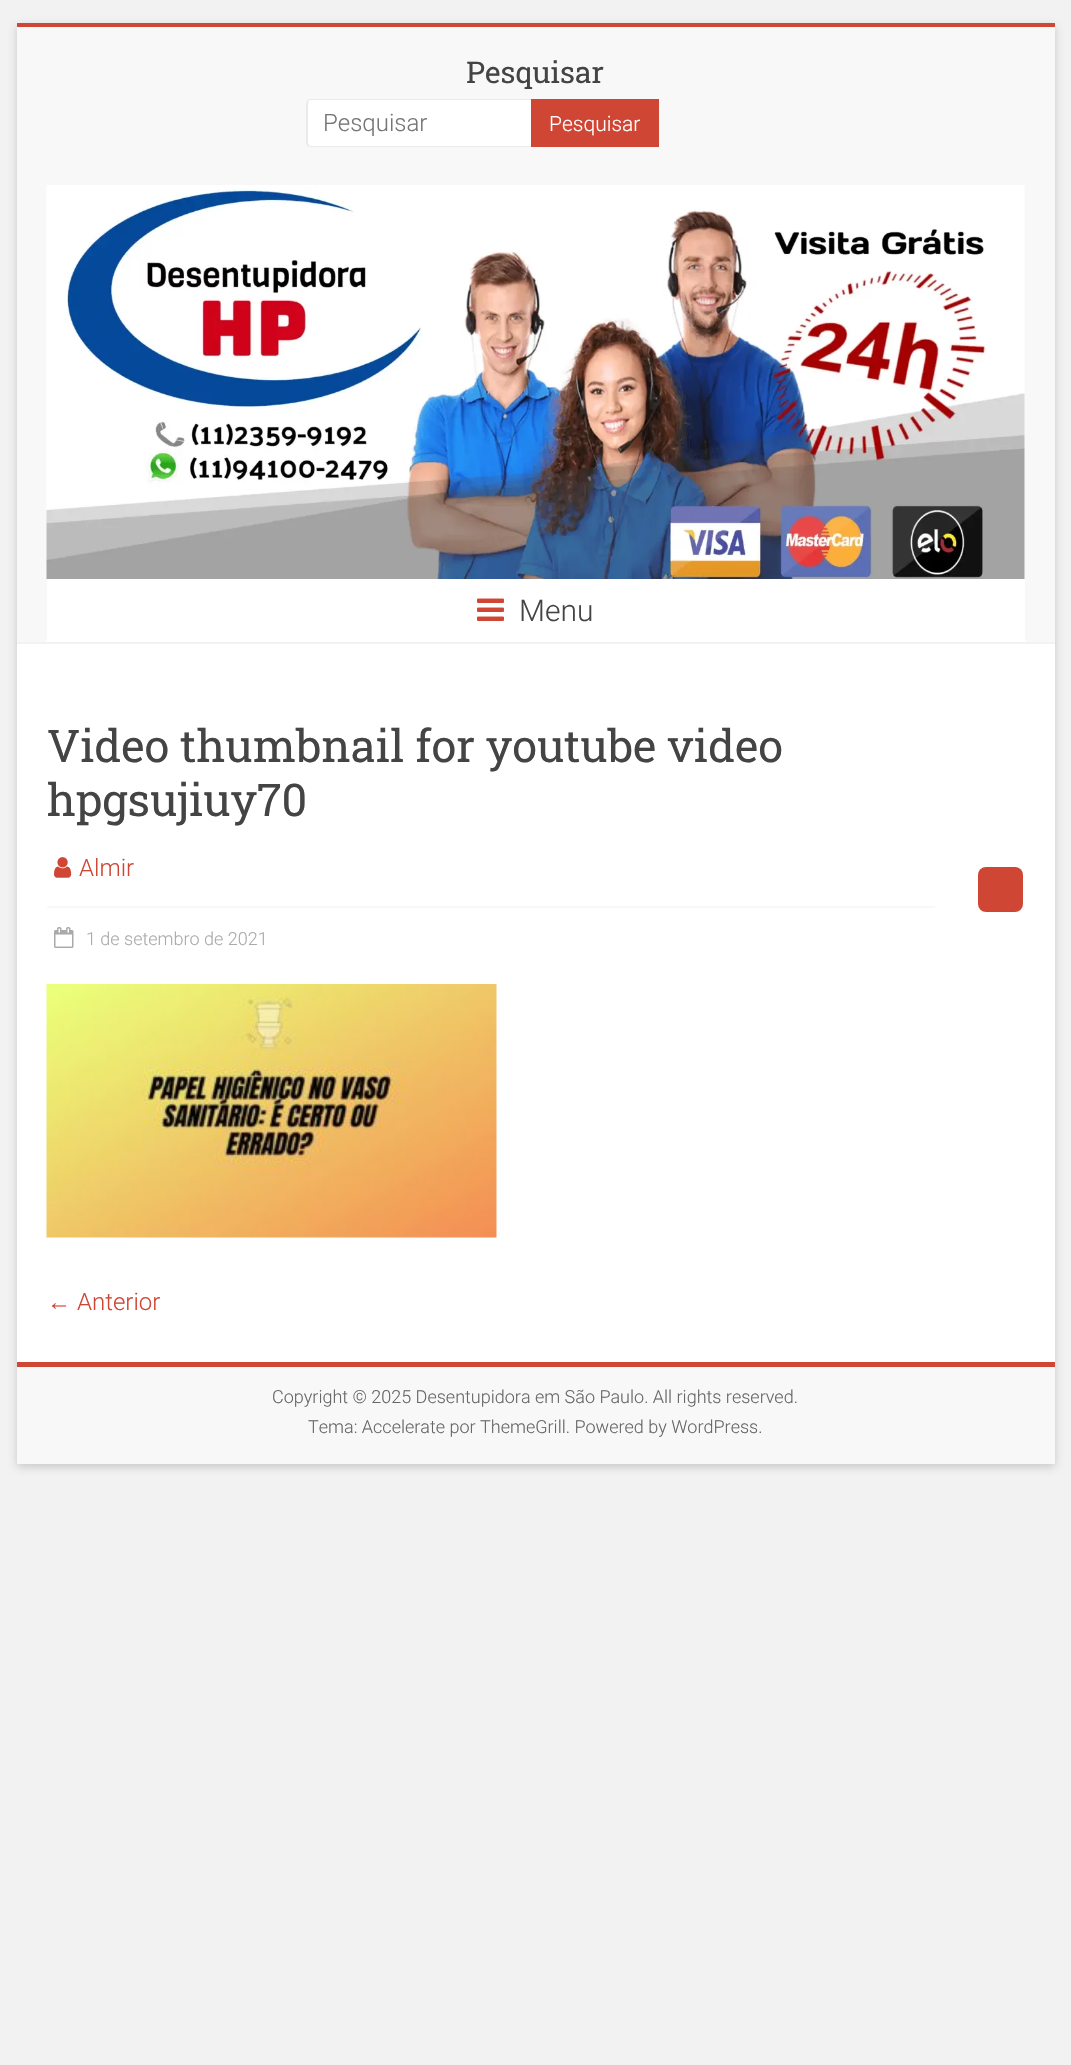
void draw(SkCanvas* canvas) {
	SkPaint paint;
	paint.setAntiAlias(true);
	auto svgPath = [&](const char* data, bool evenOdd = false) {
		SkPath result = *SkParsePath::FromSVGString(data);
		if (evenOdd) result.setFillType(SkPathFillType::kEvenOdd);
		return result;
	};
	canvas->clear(0xfff2f2f2);
	paint.setColor(0x4d646464);
	paint.setMaskFilter(SkMaskFilter::MakeBlur(kNormal_SkBlurStyle, 4.5));
	canvas->drawRect(SkRect::MakeXYWH(17, 26, 1038, 1441), paint);
	paint.setMaskFilter(nullptr);
	paint.setColor(0xffffffff);
	canvas->drawRect(SkRect::MakeXYWH(17, 644, 1038, 718), paint);
	paint.setColor(0xffcf4634);
	canvas->drawRect(SkRect::MakeXYWH(17, 23, 1038, 4), paint);
	paint.setColor(0xfff8f8f8);
	canvas->drawRect(SkRect::MakeXYWH(17, 27, 1038, 615), paint);
	paint.setColor(0xfff2f2f2);
	canvas->drawRect(SkRect::MakeXYWH(17, 642, 1038, 2), paint);
	SkFont f1(fontMgr->matchFamilyStyle("Roboto Slab", SkFontStyle::Normal()), 30);
	f1.setSubpixel(true);
	paint.setColor(0xff444444);
	canvas->drawString("Pesquisar", 466, 83, f1, paint);
	paint.setColor(0xffffffff);
	canvas->drawPath(svgPath("M311 99H531V147H311C308 147 306 145 306 142V104C306 101 308 99 311 99Z"), paint);
	paint.setColor(0xffeaeaea);
	canvas->drawPath(svgPath("M310 99H531V147H310C308 147 306 145 306 142V104C306 101 308 99 310 99ZM310 100H531V146H310C309 146 308 144 308 142V104C308 102 309 100 310 100Z", true), paint);
	SkFont f2(fontMgr->matchFamilyStyle("Roboto", SkFontStyle(300, SkFontStyle::kNormal_Width, SkFontStyle::kUpright_Slant)), 24);
	f2.setSubpixel(true);
	paint.setColor(0xff757575);
	canvas->drawString("Pesquisar", 323, 131, f2, paint);
	paint.setColor(0xffcf4634);
	canvas->drawRect(SkRect::MakeXYWH(531, 99, 128, 48), paint);
	SkFont f3(fontMgr->matchFamilyStyle("Roboto", SkFontStyle(300, SkFontStyle::kNormal_Width, SkFontStyle::kUpright_Slant)), 21);
	f3.setSubpixel(true);
	paint.setColor(0xffffffff);
	canvas->drawString("Pesquisar", 549, 131, f3, paint);
	canvas->drawImageRect(SkImages::DeferredFromEncodedData(SkData::MakeFromFileName("img1.png")), SkRect::MakeXYWH(46, 185, 979, 394), SkSamplingOptions());
	canvas->drawRect(SkRect::MakeXYWH(47, 579, 978, 63), paint);
	canvas->drawImageRect(SkImages::DeferredFromEncodedData(SkData::MakeFromFileName("img2.png")), SkRect::MakeXYWH(477, 598, 27, 23), SkSamplingOptions());
	SkFont f4(fontMgr->matchFamilyStyle("Roboto", SkFontStyle(300, SkFontStyle::kNormal_Width, SkFontStyle::kUpright_Slant)), 30);
	f4.setSubpixel(true);
	paint.setColor(0xff444444);
	canvas->drawString("Menu", 519, 621, f4, paint);
	SkFont f5(fontMgr->matchFamilyStyle("Roboto Slab", SkFontStyle::Normal()), 45);
	f5.setSubpixel(true);
	canvas->drawString("Video thumbnail for youtube video", 47, 762, f5, paint);
	canvas->drawString("hpgsujiuy70", 47, 816, f5, paint);
	canvas->drawImageRect(SkImages::DeferredFromEncodedData(SkData::MakeFromFileName("img3.png")), SkRect::MakeXYWH(54, 857, 18, 21), SkSamplingOptions());
	paint.setColor(0xffcf4634);
	canvas->drawString("Almir", 79, 876, f2, paint);
	paint.setColor(0xfff8f8f8);
	canvas->drawRect(SkRect::MakeXYWH(47, 906, 888, 2), paint);
	paint.setColor(0xffcf4634);
	canvas->drawRoundRect(SkRect::MakeXYWH(978, 867, 45, 45), 8, 8, paint);
	canvas->drawImageRect(SkImages::DeferredFromEncodedData(SkData::MakeFromFileName("img4.png")), SkRect::MakeXYWH(54, 927, 20, 21), SkSamplingOptions());
	SkFont f6(fontMgr->matchFamilyStyle("Roboto", SkFontStyle(300, SkFontStyle::kNormal_Width, SkFontStyle::kUpright_Slant)), 18);
	f6.setSubpixel(true);
	paint.setColor(0xffaaaaaa);
	canvas->drawString("1 de setembro de 2021", 86, 945, f6, paint);
	canvas->drawImageRect(SkImages::DeferredFromEncodedData(SkData::MakeFromFileName("img5.png")), SkRect::MakeXYWH(46, 984, 451, 254), SkSamplingOptions());
	SkFont f7(fontMgr->matchFamilyStyle("Liberation Sans", SkFontStyle::Normal()), 24);
	f7.setSubpixel(true);
	paint.setColor(0xffcf4634);
	canvas->drawString("←", 47, 1310, f7, paint);
	canvas->drawString("Anterior", 77, 1310, f2, paint);
	paint.setColor(0xfff8f8f8);
	canvas->drawRect(SkRect::MakeXYWH(17, 1367, 1038, 97), paint);
	paint.setColor(0xffcf4634);
	canvas->drawRect(SkRect::MakeXYWH(17, 1362, 1038, 5), paint);
	paint.setColor(0xff666666);
	canvas->drawString("Copyright © 2025 Desentupidora em São Paulo. All rights reserved.", 272, 1403, f6, paint);
	canvas->drawString("Tema: Accelerate por ThemeGrill. Powered by WordPress.", 308, 1433, f6, paint);
}
